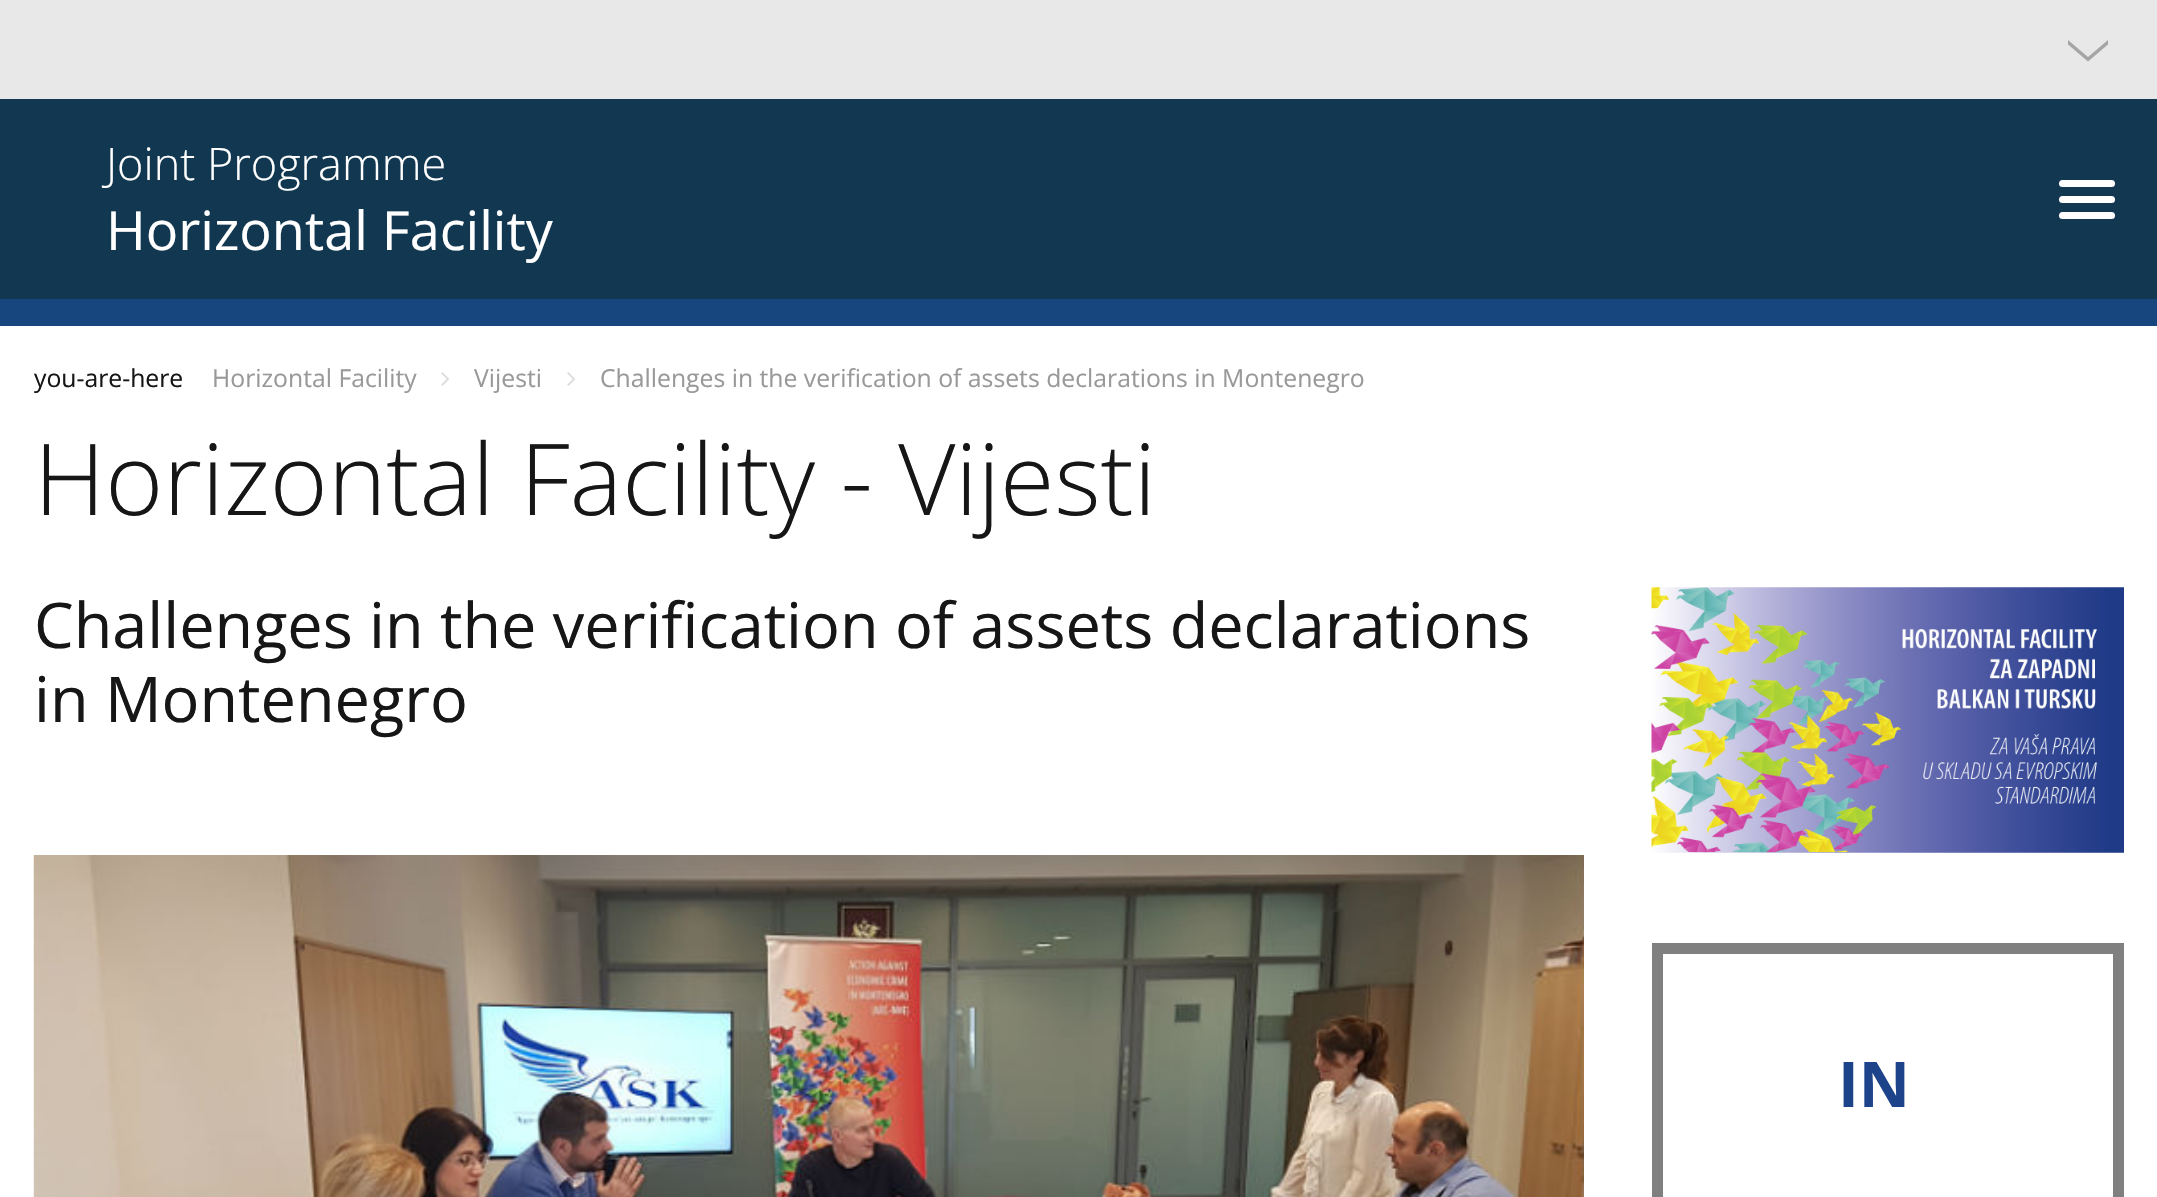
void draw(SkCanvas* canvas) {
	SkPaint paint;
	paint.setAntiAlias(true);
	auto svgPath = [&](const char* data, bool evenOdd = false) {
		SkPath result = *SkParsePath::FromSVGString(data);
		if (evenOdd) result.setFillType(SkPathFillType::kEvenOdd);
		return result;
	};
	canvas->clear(0xffffffff);
	paint.setColor(0xffe8e8e8);
	canvas->drawRect(SkRect::MakeXYWH(0, 0, 2157, 99), paint);
	paint.setColor(0xffa5a5a5);
	canvas->drawPath(svgPath("M2068 40L2088 57V61.5L2068 44.5ZM2088 57L2108 40V44.5L2088 61.5Z"), paint);
	paint.setColor(0xff123751);
	canvas->drawRect(SkRect::MakeXYWH(0, 99, 2157, 200), paint);
	paint.setColor(0xff17457e);
	canvas->drawRect(SkRect::MakeXYWH(0, 299, 2157, 27), paint);
	SkFont f1(fontMgr->matchFamilyStyle("Open Sans", SkFontStyle(300, SkFontStyle::kNormal_Width, SkFontStyle::kUpright_Slant)), 45);
	f1.setSubpixel(true);
	paint.setColor(0xffffffff);
	canvas->drawString("Joint Programme", 106, 180, f1, paint);
	SkFont f2(fontMgr->matchFamilyStyle("Open Sans", SkFontStyle::Normal()), 54);
	f2.setSubpixel(true);
	canvas->drawString("Horizontal Facility", 106, 250, f2, paint);
	canvas->drawRoundRect(SkRect::MakeXYWH(2059, 180, 56, 7), 3.5, 3.5, paint);
	canvas->drawRoundRect(SkRect::MakeXYWH(2059, 196, 56, 7), 3.5, 3.5, paint);
	canvas->drawRoundRect(SkRect::MakeXYWH(2059, 212, 56, 7), 3.5, 3.5, paint);
	SkFont f3(fontMgr->matchFamilyStyle("Open Sans", SkFontStyle::Normal()), 24.75);
	f3.setSubpixel(true);
	paint.setColor(0xff161616);
	canvas->drawString("you-are-here", 34, 387, f3, paint);
	paint.setColor(0xff999999);
	canvas->drawString("Horizontal Facility", 212, 387, f3, paint);
	canvas->drawImageRect(SkImages::DeferredFromEncodedData(SkData::MakeFromFileName("img1.png")), SkRect::MakeXYWH(441, 372, 8, 14), SkSamplingOptions());
	canvas->drawString("Vijesti", 474, 387, f3, paint);
	canvas->drawImageRect(SkImages::DeferredFromEncodedData(SkData::MakeFromFileName("img1.png")), SkRect::MakeXYWH(567, 372, 8, 14), SkSamplingOptions());
	canvas->drawString("Challenges in the verification of assets declarations in Montenegro", 600, 387, f3, paint);
	SkFont f4(fontMgr->matchFamilyStyle("Open Sans", SkFontStyle(300, SkFontStyle::kNormal_Width, SkFontStyle::kUpright_Slant)), 99);
	f4.setSubpixel(true);
	paint.setColor(0xff161616);
	canvas->drawString("Horizontal Facility - Vijesti", 34, 515, f4, paint);
	SkFont f5(fontMgr->matchFamilyStyle("Open Sans", SkFontStyle::Normal()), 63);
	f5.setSubpixel(true);
	canvas->drawString("Challenges in the verification of assets declarations", 34, 648, f5, paint);
	canvas->drawString("in Montenegro", 34, 722, f5, paint);
	canvas->drawImageRect(SkImages::DeferredFromEncodedData(SkData::MakeFromFileName("img2.png")), SkRect::MakeXYWH(33, 855, 1551, 342), SkSamplingOptions());
	canvas->drawImageRect(SkImages::DeferredFromEncodedData(SkData::MakeFromFileName("img3.png")), SkRect::MakeXYWH(1651, 587, 473, 266), SkSamplingOptions());
	paint.setColor(0xff808080);
	canvas->drawRect(SkRect::MakeXYWH(1663, 943, 450, 11), paint);
	canvas->drawRect(SkRect::MakeXYWH(2113, 943, 11, 254), paint);
	canvas->drawRect(SkRect::MakeXYWH(1652, 943, 11, 254), paint);
	SkFont f6(fontMgr->matchFamilyStyle("Open Sans", SkFontStyle::Bold()), 63);
	f6.setSubpixel(true);
	paint.setColor(0xff1d448a);
	canvas->drawString("IN", 1838, 1107, f6, paint);
}
